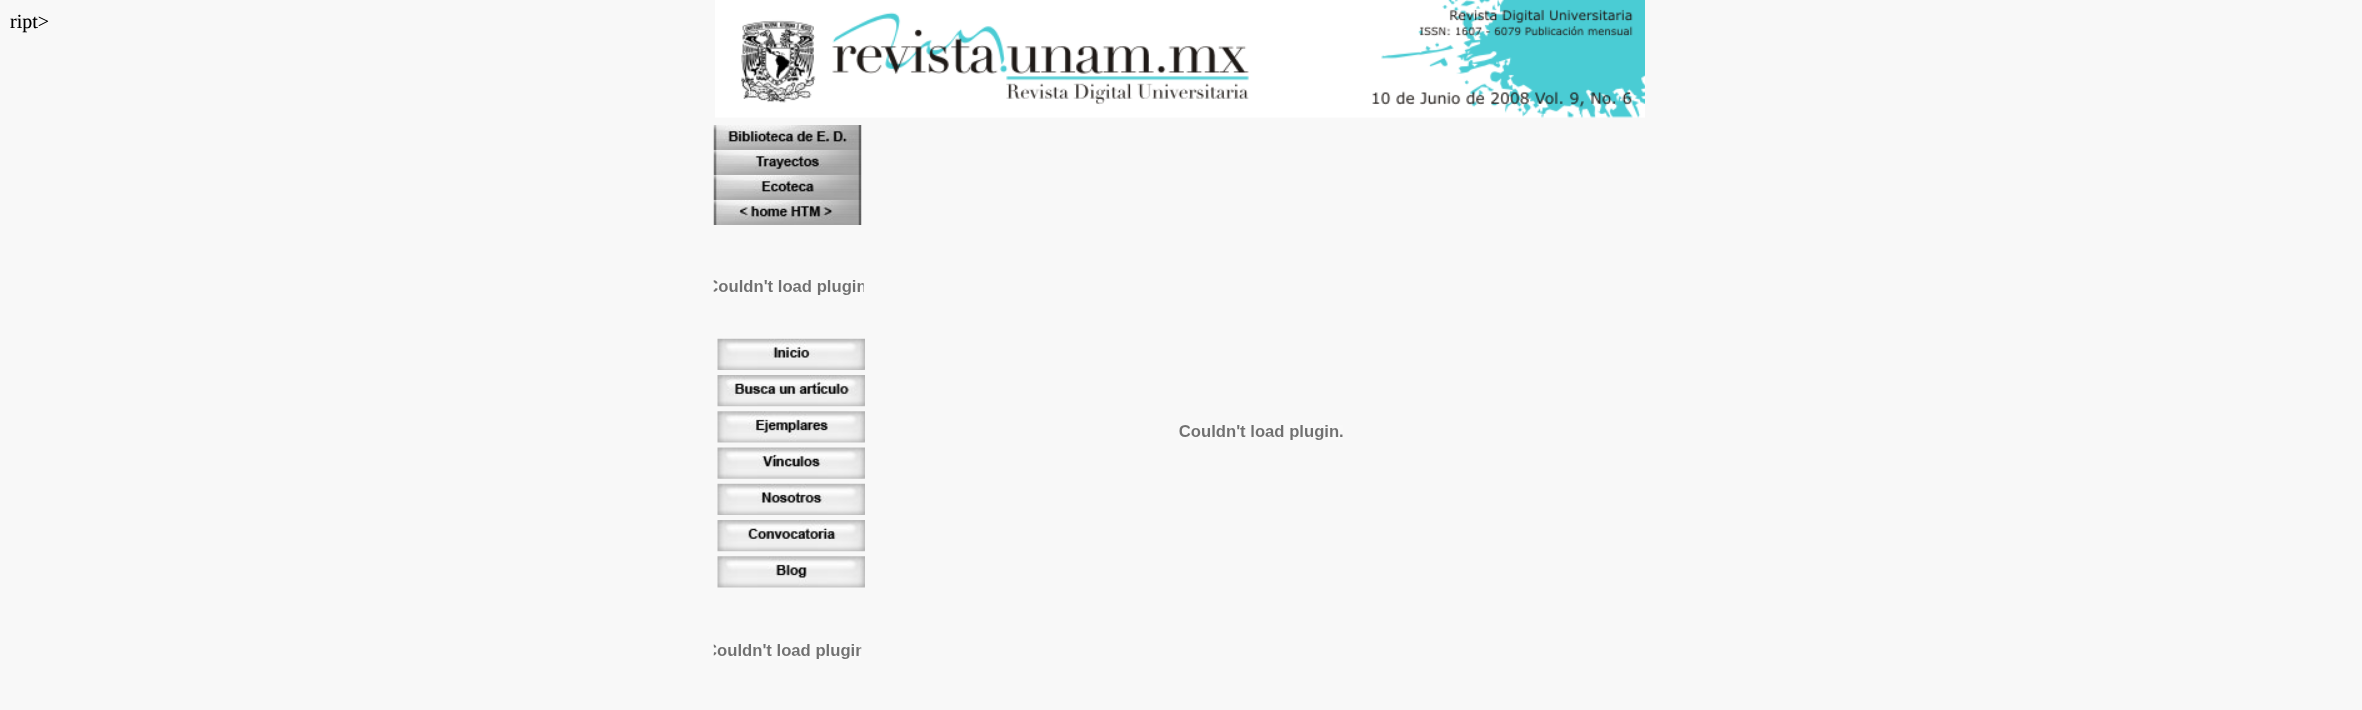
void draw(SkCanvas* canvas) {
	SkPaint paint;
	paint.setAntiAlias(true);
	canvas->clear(0xfff8f8f8);
	SkFont f1(fontMgr->matchFamilyStyle("Liberation Serif", SkFontStyle::Normal()), 20);
	f1.setSubpixel(true);
	paint.setColor(0xff000000);
	canvas->drawString("ript>", 10, 28, f1, paint);
	canvas->drawImageRect(SkImages::DeferredFromEncodedData(SkData::MakeFromFileName("img1.png")), SkRect::MakeXYWH(715, 0, 930, 118), SkSamplingOptions());
	canvas->drawImageRect(SkImages::DeferredFromEncodedData(SkData::MakeFromFileName("img2.png")), SkRect::MakeXYWH(713, 125, 149, 25), SkSamplingOptions());
	canvas->drawImageRect(SkImages::DeferredFromEncodedData(SkData::MakeFromFileName("img3.png")), SkRect::MakeXYWH(713, 150, 149, 25), SkSamplingOptions());
	canvas->drawImageRect(SkImages::DeferredFromEncodedData(SkData::MakeFromFileName("img4.png")), SkRect::MakeXYWH(713, 175, 149, 25), SkSamplingOptions());
	canvas->drawImageRect(SkImages::DeferredFromEncodedData(SkData::MakeFromFileName("img5.png")), SkRect::MakeXYWH(713, 200, 149, 25), SkSamplingOptions());
	canvas->drawImageRect(SkImages::DeferredFromEncodedData(SkData::MakeFromFileName("img6.png")), SkRect::MakeXYWH(713, 280, 151, 15), SkSamplingOptions());
	canvas->drawImageRect(SkImages::DeferredFromEncodedData(SkData::MakeFromFileName("img7.png")), SkRect::MakeXYWH(717, 338, 148, 32), SkSamplingOptions());
	canvas->drawImageRect(SkImages::DeferredFromEncodedData(SkData::MakeFromFileName("img8.png")), SkRect::MakeXYWH(717, 375, 148, 32), SkSamplingOptions());
	canvas->drawImageRect(SkImages::DeferredFromEncodedData(SkData::MakeFromFileName("img9.png")), SkRect::MakeXYWH(717, 411, 148, 32), SkSamplingOptions());
	canvas->drawImageRect(SkImages::DeferredFromEncodedData(SkData::MakeFromFileName("img10.png")), SkRect::MakeXYWH(717, 447, 148, 32), SkSamplingOptions());
	canvas->drawImageRect(SkImages::DeferredFromEncodedData(SkData::MakeFromFileName("img11.png")), SkRect::MakeXYWH(717, 483, 148, 32), SkSamplingOptions());
	canvas->drawImageRect(SkImages::DeferredFromEncodedData(SkData::MakeFromFileName("img12.png")), SkRect::MakeXYWH(717, 520, 148, 32), SkSamplingOptions());
	canvas->drawImageRect(SkImages::DeferredFromEncodedData(SkData::MakeFromFileName("img13.png")), SkRect::MakeXYWH(717, 556, 148, 32), SkSamplingOptions());
	canvas->drawImageRect(SkImages::DeferredFromEncodedData(SkData::MakeFromFileName("img14.png")), SkRect::MakeXYWH(713, 644, 149, 15), SkSamplingOptions());
	canvas->drawImageRect(SkImages::DeferredFromEncodedData(SkData::MakeFromFileName("img15.png")), SkRect::MakeXYWH(1179, 425, 164, 15), SkSamplingOptions());
}
